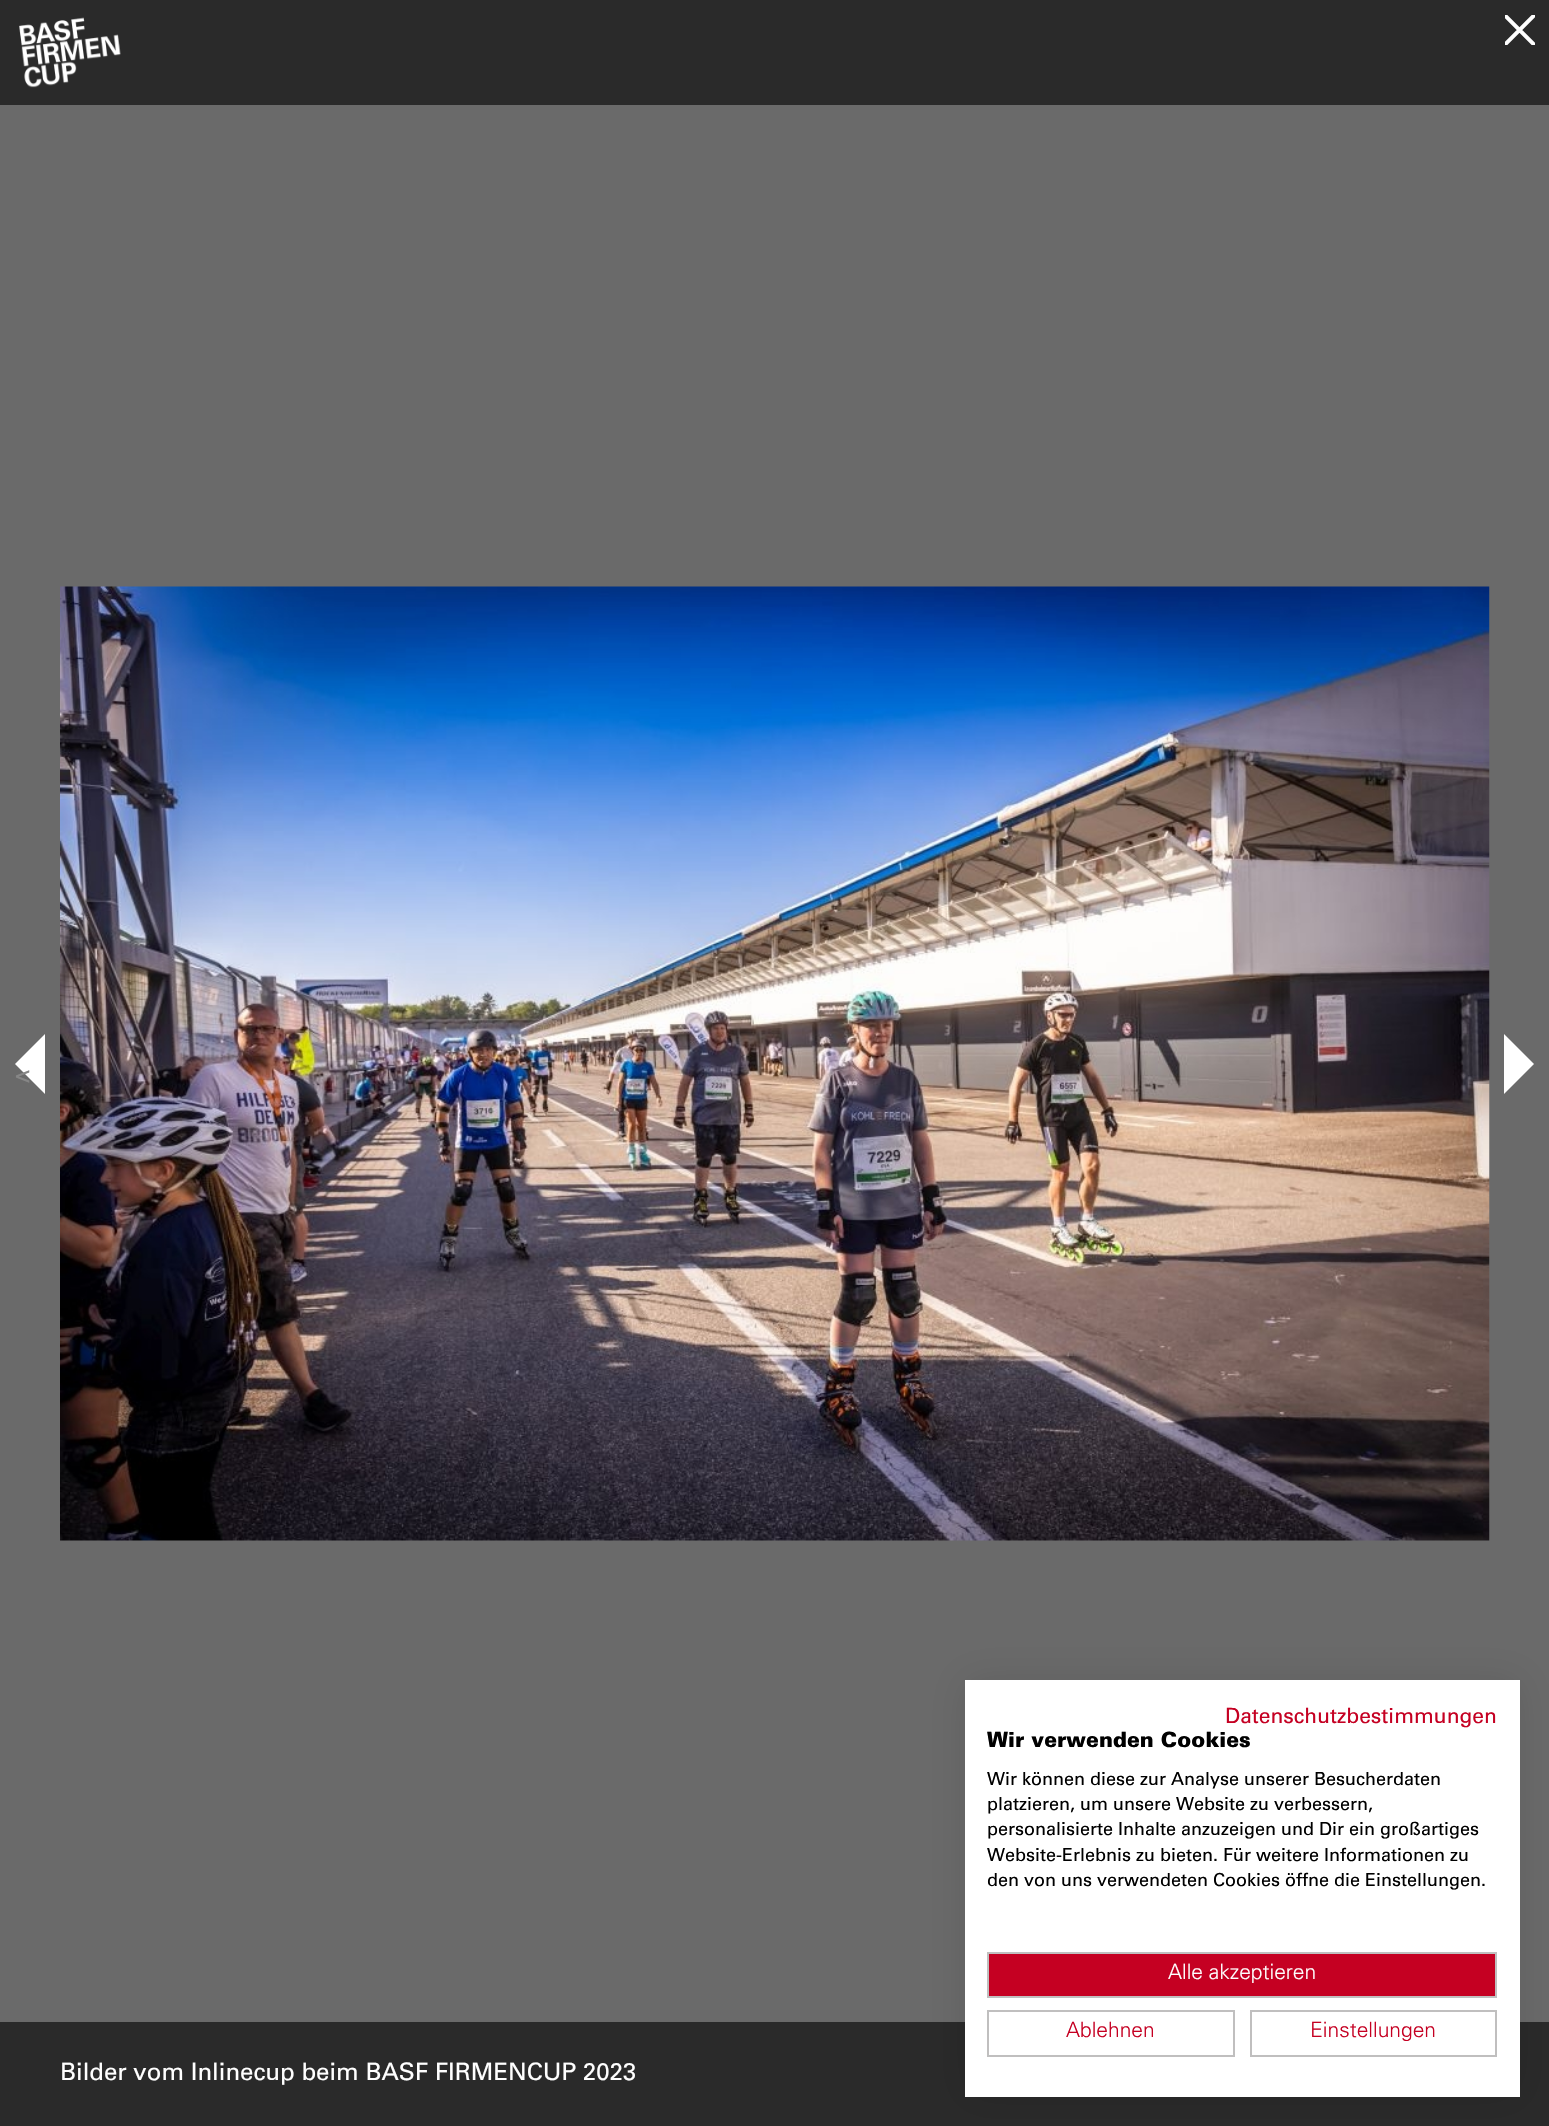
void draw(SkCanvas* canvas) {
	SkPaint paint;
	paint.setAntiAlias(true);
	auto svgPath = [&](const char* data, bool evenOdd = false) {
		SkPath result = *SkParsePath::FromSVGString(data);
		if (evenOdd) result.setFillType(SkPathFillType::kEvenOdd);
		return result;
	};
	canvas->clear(0xff6a6a6a);
	paint.setColor(0xff2a2a2a);
	canvas->drawRect(SkRect::MakeXYWH(0, 0, 1549, 105), paint);
	canvas->drawImageRect(SkImages::DeferredFromEncodedData(SkData::MakeFromFileName("img1.png")), SkRect::MakeXYWH(19, 17, 102, 71), SkSamplingOptions());
	canvas->save();
	canvas->clipRect(SkRect::MakeXYWH(1505, 15, 30, 30));
	paint.setStroke(true);
	paint.setStrokeWidth(4);
	paint.setStrokeCap(SkPaint::kSquare_Cap);
	paint.setColor(0xffffffff);
	canvas->drawPath(svgPath("M1504.5 15L1534.5 45M1504.5 45L1534.5 15"), paint);
	canvas->restore();
	paint.setStroke(false);
	canvas->drawPath(svgPath("M45 1034V1094L15 1064Z"), paint);
	SkFont f1(fontMgr->matchFamilyStyle("Univers", SkFontStyle::Normal()), 26);
	f1.setSubpixel(true);
	paint.setColor(0xff868686);
	canvas->drawString("<", 15, 1083, f1, paint);
	canvas->drawImageRect(SkImages::DeferredFromEncodedData(SkData::MakeFromFileName("img2.png")), SkRect::MakeXYWH(60, 586, 1430, 955), SkSamplingOptions());
	paint.setColor(0xffffffff);
	canvas->drawPath(svgPath("M1504 1094V1034L1534 1064Z"), paint);
	paint.setColor(0xff2a2a2a);
	canvas->drawRect(SkRect::MakeXYWH(0, 2022, 1549, 104), paint);
	paint.setColor(0x1a000000);
	paint.setMaskFilter(SkMaskFilter::MakeBlur(kNormal_SkBlurStyle, 18));
	canvas->drawRect(SkRect::MakeXYWH(965, 1680, 555, 417), paint);
	paint.setMaskFilter(nullptr);
	paint.setColor(0xffffffff);
	canvas->drawRect(SkRect::MakeXYWH(965, 1680, 555, 417), paint);
	SkFont f2(fontMgr->matchFamilyStyle("Univers", SkFontStyle::Normal()), 21);
	f2.setSubpixel(true);
	paint.setColor(0xffc50022);
	canvas->drawString("Datenschutzbestimmungen", 1225, 1723, f2, paint);
	SkFont f3(fontMgr->matchFamilyStyle("Univers", SkFontStyle(900, SkFontStyle::kNormal_Width, SkFontStyle::kUpright_Slant)), 21);
	f3.setSubpixel(true);
	paint.setColor(0xff000000);
	canvas->drawString("Wir verwenden Cookies", 987, 1747, f3, paint);
	SkFont f4(fontMgr->matchFamilyStyle("Univers", SkFontStyle::Normal()), 18);
	f4.setSubpixel(true);
	canvas->drawString("Wir können diese zur Analyse unserer Besucherdaten", 987, 1785, f4, paint);
	canvas->drawString("platzieren, um unsere Website zu verbessern,", 987, 1810, f4, paint);
	canvas->drawString("personalisierte Inhalte anzuzeigen und Dir ein großartiges", 987, 1835, f4, paint);
	canvas->drawString("Website-Erlebnis zu bieten. Für weitere Informationen zu", 987, 1861, f4, paint);
	canvas->drawString("den von uns verwendeten Cookies öffne die Einstellungen.", 987, 1886, f4, paint);
	paint.setColor(0xffc50022);
	canvas->drawRect(SkRect::MakeXYWH(988, 1953, 508, 44), paint);
	paint.setStroke(true);
	paint.setStrokeWidth(2);
	paint.setStrokeCap(SkPaint::kButt_Cap);
	paint.setColor(0xffc0bfbf);
	canvas->drawRect(SkRect::MakeXYWH(988, 1953, 508, 44), paint);
	SkFont f5(fontMgr->matchFamilyStyle("Univers", SkFontStyle(300, SkFontStyle::kNormal_Width, SkFontStyle::kUpright_Slant)), 21);
	f5.setSubpixel(true);
	paint.setStroke(false);
	paint.setColor(0xffffffff);
	canvas->drawString("Alle akzeptieren", 1168, 1979, f5, paint);
	paint.setStroke(true);
	paint.setColor(0xffc0bfbf);
	canvas->drawRect(SkRect::MakeXYWH(988, 2011, 246, 45), paint);
	paint.setStroke(false);
	paint.setColor(0xffc50022);
	canvas->drawString("Ablehnen", 1066, 2037, f5, paint);
	paint.setStroke(true);
	paint.setColor(0xffc0bfbf);
	canvas->drawRect(SkRect::MakeXYWH(1251, 2011, 245, 45), paint);
	paint.setStroke(false);
	paint.setColor(0xffc50022);
	canvas->drawString("Einstellungen", 1310, 2037, f5, paint);
	SkFont f6(fontMgr->matchFamilyStyle("Univers", SkFontStyle::Normal()), 24);
	f6.setSubpixel(true);
	paint.setColor(0xffffffff);
	canvas->drawString("Bilder vom Inlinecup beim BASF FIRMENCUP 2023", 60, 2080, f6, paint);
}
